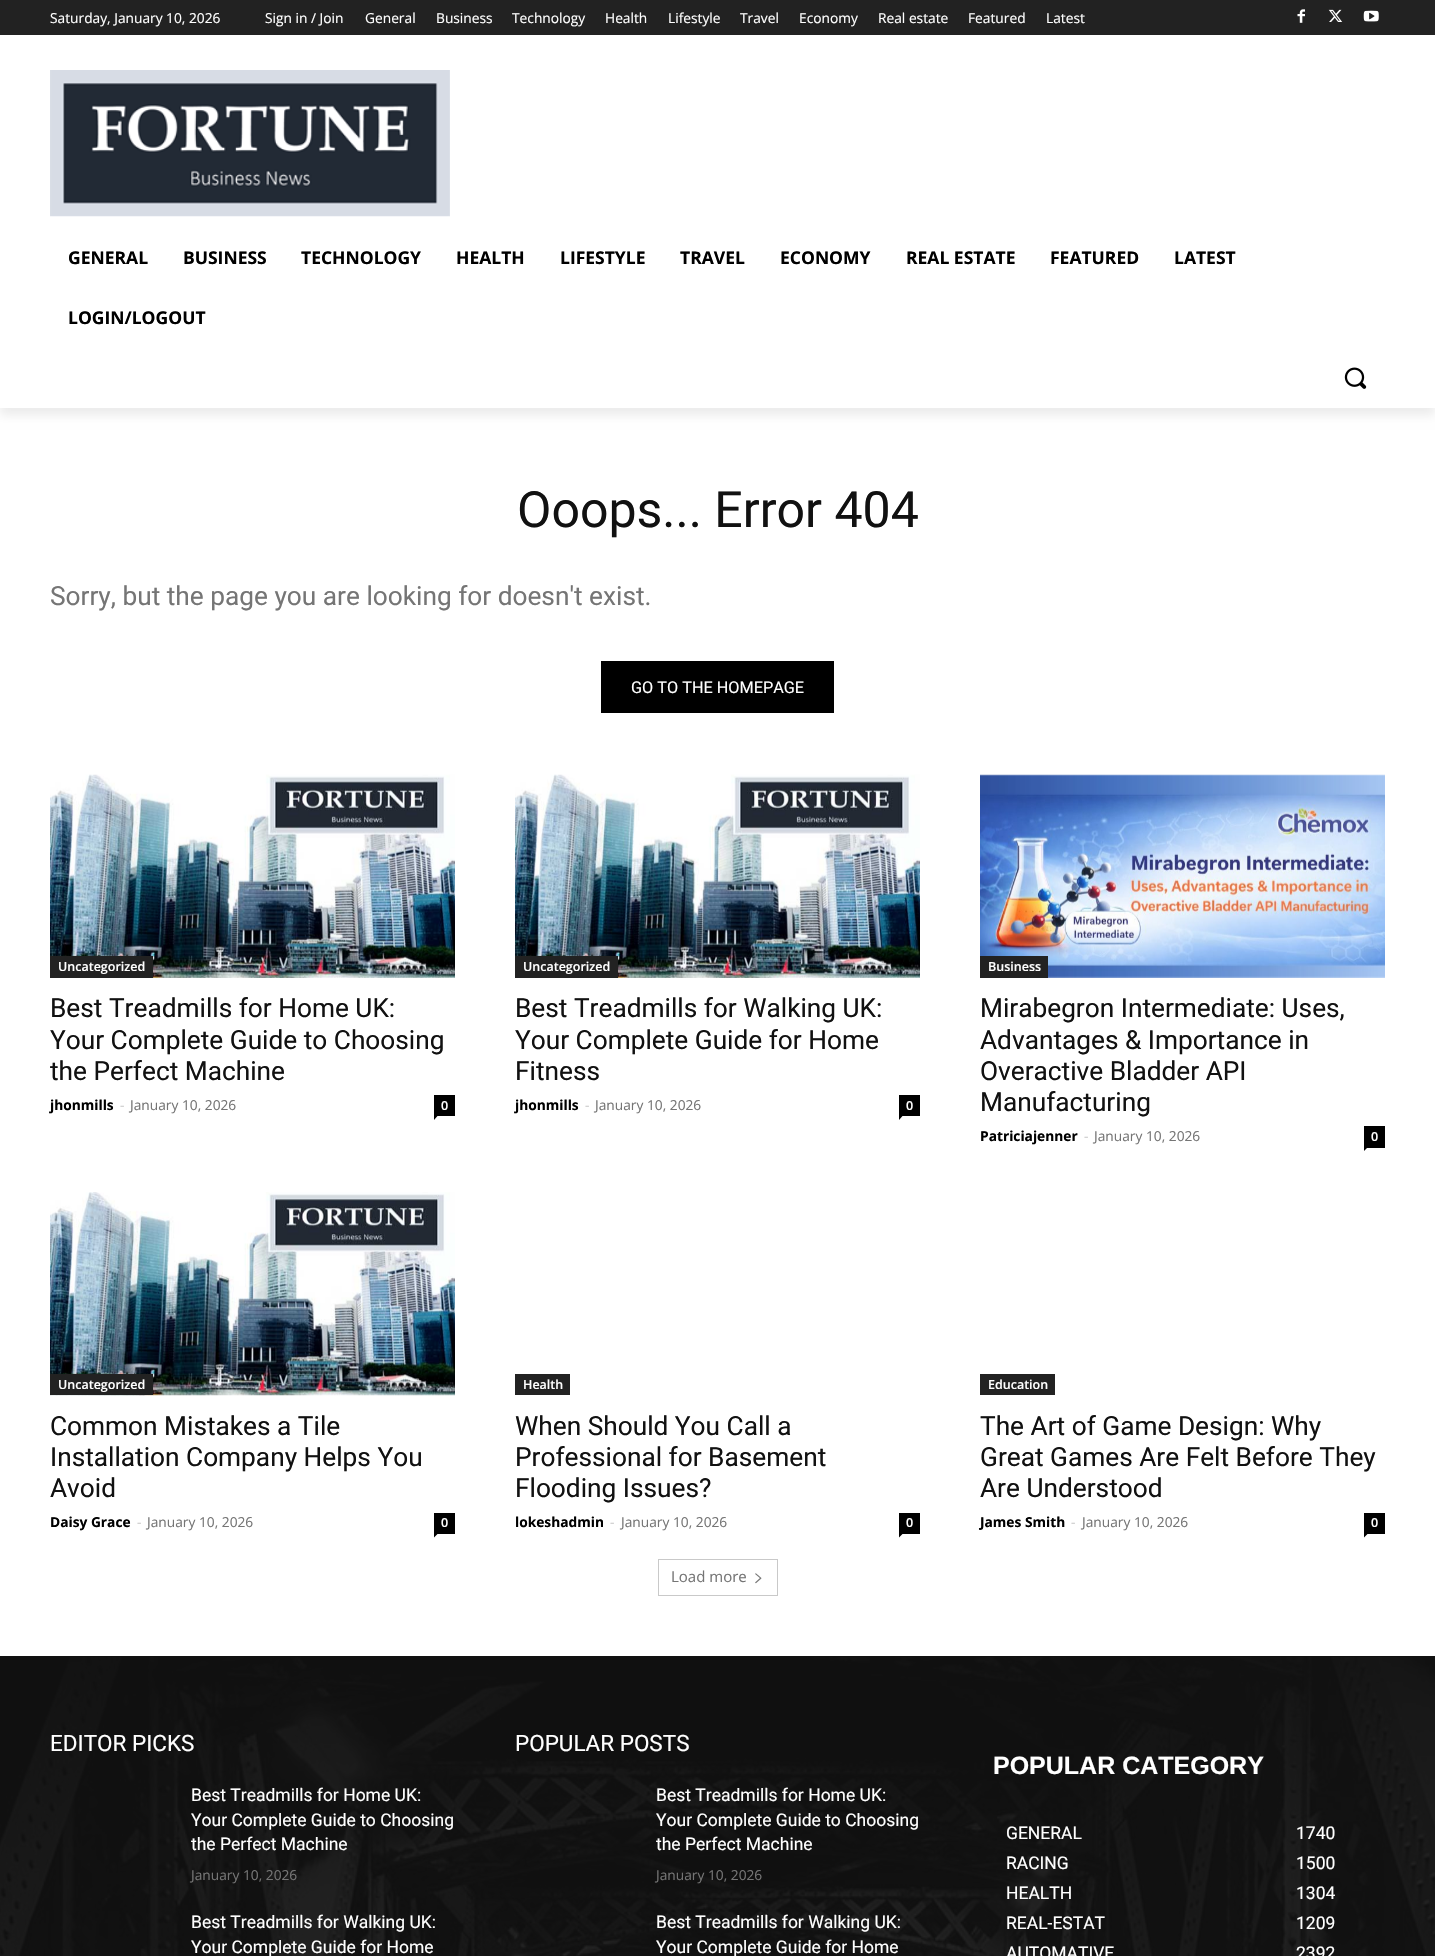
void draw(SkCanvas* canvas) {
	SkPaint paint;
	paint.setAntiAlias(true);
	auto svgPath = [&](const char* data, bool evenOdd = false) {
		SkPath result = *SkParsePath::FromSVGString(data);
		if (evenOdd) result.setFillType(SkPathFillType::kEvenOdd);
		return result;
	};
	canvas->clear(0xffffffff);
	paint.setColor(0xff222222);
	canvas->drawRect(SkRect::MakeXYWH(0, 0, 1435, 35), paint);
	canvas->drawImageRect(SkImages::DeferredFromEncodedData(SkData::MakeFromFileName("img1.png")), SkRect::MakeXYWH(1297, 9, 8, 14), SkSamplingOptions());
	canvas->drawImageRect(SkImages::DeferredFromEncodedData(SkData::MakeFromFileName("img2.png")), SkRect::MakeXYWH(1328, 9, 15, 13), SkSamplingOptions());
	canvas->drawImageRect(SkImages::DeferredFromEncodedData(SkData::MakeFromFileName("img3.png")), SkRect::MakeXYWH(1363, 10, 16, 12), SkSamplingOptions());
	canvas->drawImageRect(SkImages::DeferredFromEncodedData(SkData::MakeFromFileName("img4.png")), SkRect::MakeXYWH(50, 70, 400, 147), SkSamplingOptions());
	canvas->save();
	canvas->clipPath(svgPath("M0 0H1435V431H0ZM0 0H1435V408H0Z", true), true);
	paint.setColor(0x14000000);
	paint.setMaskFilter(SkMaskFilter::MakeBlur(kNormal_SkBlurStyle, 5));
	canvas->drawRect(SkRect::MakeXYWH(0, 8, 1435, 407), paint);
	paint.setMaskFilter(nullptr);
	canvas->restore();
	SkFont f1(fontMgr->matchFamilyStyle("Open Sans", SkFontStyle::Normal()), 13.75);
	f1.setSubpixel(true);
	paint.setColor(0xffffffff);
	canvas->drawString("Saturday, January 10, 2026", 50, 23, f1, paint);
	canvas->drawString("Sign in / Join", 265, 23, f1, paint);
	canvas->drawString("General", 365, 23, f1, paint);
	canvas->drawString("Business", 436, 23, f1, paint);
	canvas->drawString("Technology", 512, 23, f1, paint);
	canvas->drawString("Health", 605, 23, f1, paint);
	canvas->drawString("Lifestyle", 668, 23, f1, paint);
	canvas->drawString("Travel", 740, 23, f1, paint);
	canvas->drawString("Economy", 799, 23, f1, paint);
	canvas->drawString("Real estate", 878, 23, f1, paint);
	canvas->drawString("Featured", 968, 23, f1, paint);
	canvas->drawString("Latest", 1046, 23, f1, paint);
	SkFont f2(fontMgr->matchFamilyStyle("Open Sans", SkFontStyle::Bold()), 17.5);
	f2.setSubpixel(true);
	paint.setColor(0xff000000);
	canvas->drawString("GENERAL", 68, 264, f2, paint);
	canvas->drawString("BUSINESS", 183, 264, f2, paint);
	canvas->drawString("TECHNOLOGY", 301, 264, f2, paint);
	canvas->drawString("HEALTH", 456, 264, f2, paint);
	canvas->drawString("LIFESTYLE", 560, 264, f2, paint);
	canvas->drawString("TRAVEL", 680, 264, f2, paint);
	canvas->drawString("ECONOMY", 780, 264, f2, paint);
	canvas->drawString("REAL ESTATE", 906, 264, f2, paint);
	canvas->drawString("FEATURED", 1050, 264, f2, paint);
	canvas->drawString("LATEST", 1174, 264, f2, paint);
	canvas->drawString("LOGIN/LOGOUT", 68, 324, f2, paint);
	canvas->drawImageRect(SkImages::DeferredFromEncodedData(SkData::MakeFromFileName("img5.png")), SkRect::MakeXYWH(1344, 367, 23, 22), SkSamplingOptions());
	SkFont f3(fontMgr->matchFamilyStyle("Roboto", SkFontStyle::Normal()), 50);
	f3.setSubpixel(true);
	paint.setColor(0xff111111);
	canvas->drawString("Ooops... Error 404", 517, 527, f3, paint);
	SkFont f4(fontMgr->matchFamilyStyle("Roboto", SkFontStyle::Normal()), 26.25);
	f4.setSubpixel(true);
	paint.setColor(0xff757575);
	canvas->drawString("Sorry, but the page you are looking for doesn't exist.", 50, 605, f4, paint);
	paint.setColor(0xff000000);
	canvas->drawRect(SkRect::MakeXYWH(601, 661, 233, 52), paint);
	SkFont f5(fontMgr->matchFamilyStyle("Roboto", SkFontStyle::Normal()), 16.25);
	f5.setSubpixel(true);
	paint.setColor(0xffffffff);
	canvas->drawString("GO TO THE HOMEPAGE", 631, 693, f5, paint);
	canvas->drawImageRect(SkImages::DeferredFromEncodedData(SkData::MakeFromFileName("img6.png")), SkRect::MakeXYWH(50, 774, 405, 204), SkSamplingOptions());
	paint.setColor(0xff222222);
	canvas->drawRect(SkRect::MakeXYWH(50, 956, 103, 22), paint);
	SkFont f6(fontMgr->matchFamilyStyle("Open Sans", SkFontStyle(600, SkFontStyle::kNormal_Width, SkFontStyle::kUpright_Slant)), 12.5);
	f6.setSubpixel(true);
	paint.setColor(0xffffffff);
	canvas->drawString("Uncategorized", 58, 971, f6, paint);
	paint.setColor(0xff111111);
	canvas->drawString("Best Treadmills for Home UK:", 50, 1017, f4, paint);
	canvas->drawString("Your Complete Guide to Choosing", 50, 1049, f4, paint);
	canvas->drawString("the Perfect Machine", 50, 1080, f4, paint);
	SkFont f7(fontMgr->matchFamilyStyle("Open Sans", SkFontStyle::Bold()), 13.75);
	f7.setSubpixel(true);
	paint.setColor(0xff000000);
	canvas->drawString("jhonmills", 50, 1110, f7, paint);
	paint.setColor(0xffcccccc);
	canvas->drawString("-", 120, 1110, f1, paint);
	paint.setColor(0xff757575);
	canvas->drawString("January 10, 2026", 130, 1110, f1, paint);
	paint.setColor(0xff000000);
	canvas->drawRect(SkRect::MakeXYWH(434, 1095, 21, 21), paint);
	paint.setColor(0xffffffff);
	canvas->drawString("0", 441, 1110, f6, paint);
	paint.setColor(0xff000000);
	canvas->drawPath(svgPath("M434 1116H437.5L434 1120Z"), paint);
	canvas->drawImageRect(SkImages::DeferredFromEncodedData(SkData::MakeFromFileName("img6.png")), SkRect::MakeXYWH(515, 774, 405, 204), SkSamplingOptions());
	paint.setColor(0xff222222);
	canvas->drawRect(SkRect::MakeXYWH(515, 956, 103, 22), paint);
	paint.setColor(0xffffffff);
	canvas->drawString("Uncategorized", 523, 971, f6, paint);
	paint.setColor(0xff111111);
	canvas->drawString("Best Treadmills for Walking UK:", 515, 1017, f4, paint);
	canvas->drawString("Your Complete Guide for Home", 515, 1049, f4, paint);
	canvas->drawString("Fitness", 515, 1080, f4, paint);
	paint.setColor(0xff000000);
	canvas->drawString("jhonmills", 515, 1110, f7, paint);
	paint.setColor(0xffcccccc);
	canvas->drawString("-", 585, 1110, f1, paint);
	paint.setColor(0xff757575);
	canvas->drawString("January 10, 2026", 595, 1110, f1, paint);
	paint.setColor(0xff000000);
	canvas->drawRect(SkRect::MakeXYWH(899, 1095, 21, 21), paint);
	paint.setColor(0xffffffff);
	canvas->drawString("0", 906, 1110, f6, paint);
	paint.setColor(0xff000000);
	canvas->drawPath(svgPath("M899 1116H902.5L899 1120Z"), paint);
	canvas->drawImageRect(SkImages::DeferredFromEncodedData(SkData::MakeFromFileName("img7.png")), SkRect::MakeXYWH(980, 774, 405, 204), SkSamplingOptions());
	paint.setColor(0xff222222);
	canvas->drawRect(SkRect::MakeXYWH(980, 956, 68, 22), paint);
	paint.setColor(0xffffffff);
	canvas->drawString("Business", 988, 971, f6, paint);
	paint.setColor(0xff111111);
	canvas->drawString("Mirabegron Intermediate: Uses,", 980, 1017, f4, paint);
	canvas->drawString("Advantages & Importance in", 980, 1049, f4, paint);
	canvas->drawString("Overactive Bladder API", 980, 1080, f4, paint);
	canvas->drawString("Manufacturing", 980, 1111, f4, paint);
	paint.setColor(0xff000000);
	canvas->drawString("Patriciajenner", 980, 1141, f7, paint);
	paint.setColor(0xffcccccc);
	canvas->drawString("-", 1084, 1141, f1, paint);
	paint.setColor(0xff757575);
	canvas->drawString("January 10, 2026", 1094, 1141, f1, paint);
	paint.setColor(0xff000000);
	canvas->drawRect(SkRect::MakeXYWH(1364, 1126, 21, 22), paint);
	paint.setColor(0xffffffff);
	canvas->drawString("0", 1371, 1141, f6, paint);
	paint.setColor(0xff000000);
	canvas->drawPath(svgPath("M1364 1147.5H1367.5L1364 1151Z"), paint);
	canvas->drawImageRect(SkImages::DeferredFromEncodedData(SkData::MakeFromFileName("img8.png")), SkRect::MakeXYWH(50, 1192, 405, 204), SkSamplingOptions());
	paint.setColor(0xff222222);
	canvas->drawRect(SkRect::MakeXYWH(50, 1374, 103, 21), paint);
	paint.setColor(0xffffffff);
	canvas->drawString("Uncategorized", 58, 1389, f6, paint);
	paint.setColor(0xff111111);
	canvas->drawString("Common Mistakes a Tile", 50, 1435, f4, paint);
	canvas->drawString("Installation Company Helps You", 50, 1466, f4, paint);
	canvas->drawString("Avoid", 50, 1497, f4, paint);
	paint.setColor(0xff000000);
	canvas->drawString("Daisy Grace", 50, 1527, f7, paint);
	paint.setColor(0xffcccccc);
	canvas->drawString("-", 137, 1527, f1, paint);
	paint.setColor(0xff757575);
	canvas->drawString("January 10, 2026", 147, 1527, f1, paint);
	paint.setColor(0xff000000);
	canvas->drawRect(SkRect::MakeXYWH(434, 1513, 21, 21), paint);
	paint.setColor(0xffffffff);
	canvas->drawString("0", 441, 1527, f6, paint);
	paint.setColor(0xff000000);
	canvas->drawPath(svgPath("M434 1534H437.5L434 1537.5Z"), paint);
	paint.setColor(0xff222222);
	canvas->drawRect(SkRect::MakeXYWH(515, 1374, 55, 21), paint);
	paint.setColor(0xffffffff);
	canvas->drawString("Health", 523, 1389, f6, paint);
	paint.setColor(0xff111111);
	canvas->drawString("When Should You Call a", 515, 1435, f4, paint);
	canvas->drawString("Professional for Basement", 515, 1466, f4, paint);
	canvas->drawString("Flooding Issues?", 515, 1497, f4, paint);
	paint.setColor(0xff000000);
	canvas->drawString("lokeshadmin", 515, 1527, f7, paint);
	paint.setColor(0xffcccccc);
	canvas->drawString("-", 610, 1527, f1, paint);
	paint.setColor(0xff757575);
	canvas->drawString("January 10, 2026", 621, 1527, f1, paint);
	paint.setColor(0xff000000);
	canvas->drawRect(SkRect::MakeXYWH(899, 1513, 21, 21), paint);
	paint.setColor(0xffffffff);
	canvas->drawString("0", 906, 1527, f6, paint);
	paint.setColor(0xff000000);
	canvas->drawPath(svgPath("M899 1534H902.5L899 1537.5Z"), paint);
	paint.setColor(0xff222222);
	canvas->drawRect(SkRect::MakeXYWH(980, 1374, 75, 21), paint);
	paint.setColor(0xffffffff);
	canvas->drawString("Education", 988, 1389, f6, paint);
	paint.setColor(0xff111111);
	canvas->drawString("The Art of Game Design: Why", 980, 1435, f4, paint);
	canvas->drawString("Great Games Are Felt Before They", 980, 1466, f4, paint);
	canvas->drawString("Are Understood", 980, 1497, f4, paint);
	paint.setColor(0xff000000);
	canvas->drawString("James Smith", 980, 1527, f7, paint);
	paint.setColor(0xffcccccc);
	canvas->drawString("-", 1071, 1527, f1, paint);
	paint.setColor(0xff757575);
	canvas->drawString("January 10, 2026", 1082, 1527, f1, paint);
	paint.setColor(0xff000000);
	canvas->drawRect(SkRect::MakeXYWH(1364, 1513, 21, 21), paint);
	paint.setColor(0xffffffff);
	canvas->drawString("0", 1371, 1527, f6, paint);
	paint.setColor(0xff000000);
	canvas->drawPath(svgPath("M1364 1534H1367.5L1364 1537.5Z"), paint);
	paint.setStroke(true);
	paint.setStrokeWidth(1);
	paint.setColor(0xffc9c9c9);
	canvas->drawRect(SkRect::MakeXYWH(658.5, 1559.5, 119, 36), paint);
	SkFont f8(fontMgr->matchFamilyStyle("Open Sans", SkFontStyle::Normal()), 15);
	f8.setSubpixel(true);
	paint.setStroke(false);
	paint.setColor(0xff757575);
	canvas->drawString("Load more", 671, 1582, f8, paint);
	canvas->drawImageRect(SkImages::DeferredFromEncodedData(SkData::MakeFromFileName("img9.png")), SkRect::MakeXYWH(755, 1573, 7, 11), SkSamplingOptions());
	paint.setColor(0xff111111);
	canvas->drawRect(SkRect::MakeXYWH(0, 1656, 1435, 300), paint);
	canvas->drawImageRect(SkImages::DeferredFromEncodedData(SkData::MakeFromFileName("img10.png")), SkRect::MakeXYWH(0, 1657, 1435, 299), SkSamplingOptions());
	SkFont f9(fontMgr->matchFamilyStyle("Roboto", SkFontStyle::Normal()), 22.5);
	f9.setSubpixel(true);
	paint.setColor(0xffffffff);
	canvas->drawString("EDITOR PICKS", 50, 1751, f9, paint);
	SkFont f10(fontMgr->matchFamilyStyle("Roboto", SkFontStyle::Normal()), 17.5);
	f10.setSubpixel(true);
	canvas->drawString("Best Treadmills for Home UK:", 191, 1801, f10, paint);
	canvas->drawString("Your Complete Guide to Choosing", 191, 1826, f10, paint);
	canvas->drawString("the Perfect Machine", 191, 1850, f10, paint);
	paint.setColor(0xff757575);
	canvas->drawString("January 10, 2026", 191, 1880, f1, paint);
	paint.setColor(0xffffffff);
	canvas->drawString("Best Treadmills for Walking UK:", 191, 1928, f10, paint);
	canvas->drawString("Your Complete Guide for Home", 191, 1953, f10, paint);
	canvas->drawString("POPULAR POSTS", 515, 1751, f9, paint);
	canvas->drawString("Best Treadmills for Home UK:", 656, 1801, f10, paint);
	canvas->drawString("Your Complete Guide to Choosing", 656, 1826, f10, paint);
	canvas->drawString("the Perfect Machine", 656, 1850, f10, paint);
	paint.setColor(0xff757575);
	canvas->drawString("January 10, 2026", 656, 1880, f1, paint);
	paint.setColor(0xffffffff);
	canvas->drawString("Best Treadmills for Walking UK:", 656, 1928, f10, paint);
	canvas->drawString("Your Complete Guide for Home", 656, 1953, f10, paint);
	SkFont f11(fontMgr->matchFamilyStyle("Liberation Sans", SkFontStyle::Bold()), 25);
	f11.setSubpixel(true);
	canvas->drawString("POPULAR CATEGORY", 993, 1774, f11, paint);
	canvas->drawString("GENERAL", 1006, 1839, f10, paint);
	canvas->drawString("RACING", 1006, 1869, f10, paint);
	canvas->drawString("HEALTH", 1006, 1899, f10, paint);
	canvas->drawString("REAL-ESTAT", 1006, 1929, f10, paint);
	canvas->drawString("AUTOMATIVE", 1006, 1959, f10, paint);
	canvas->drawString("1740", 1296, 1839, f10, paint);
	canvas->drawString("1500", 1296, 1869, f10, paint);
	canvas->drawString("1304", 1296, 1899, f10, paint);
	canvas->drawString("1209", 1296, 1929, f10, paint);
	canvas->drawString("2392", 1296, 1959, f10, paint);
}
